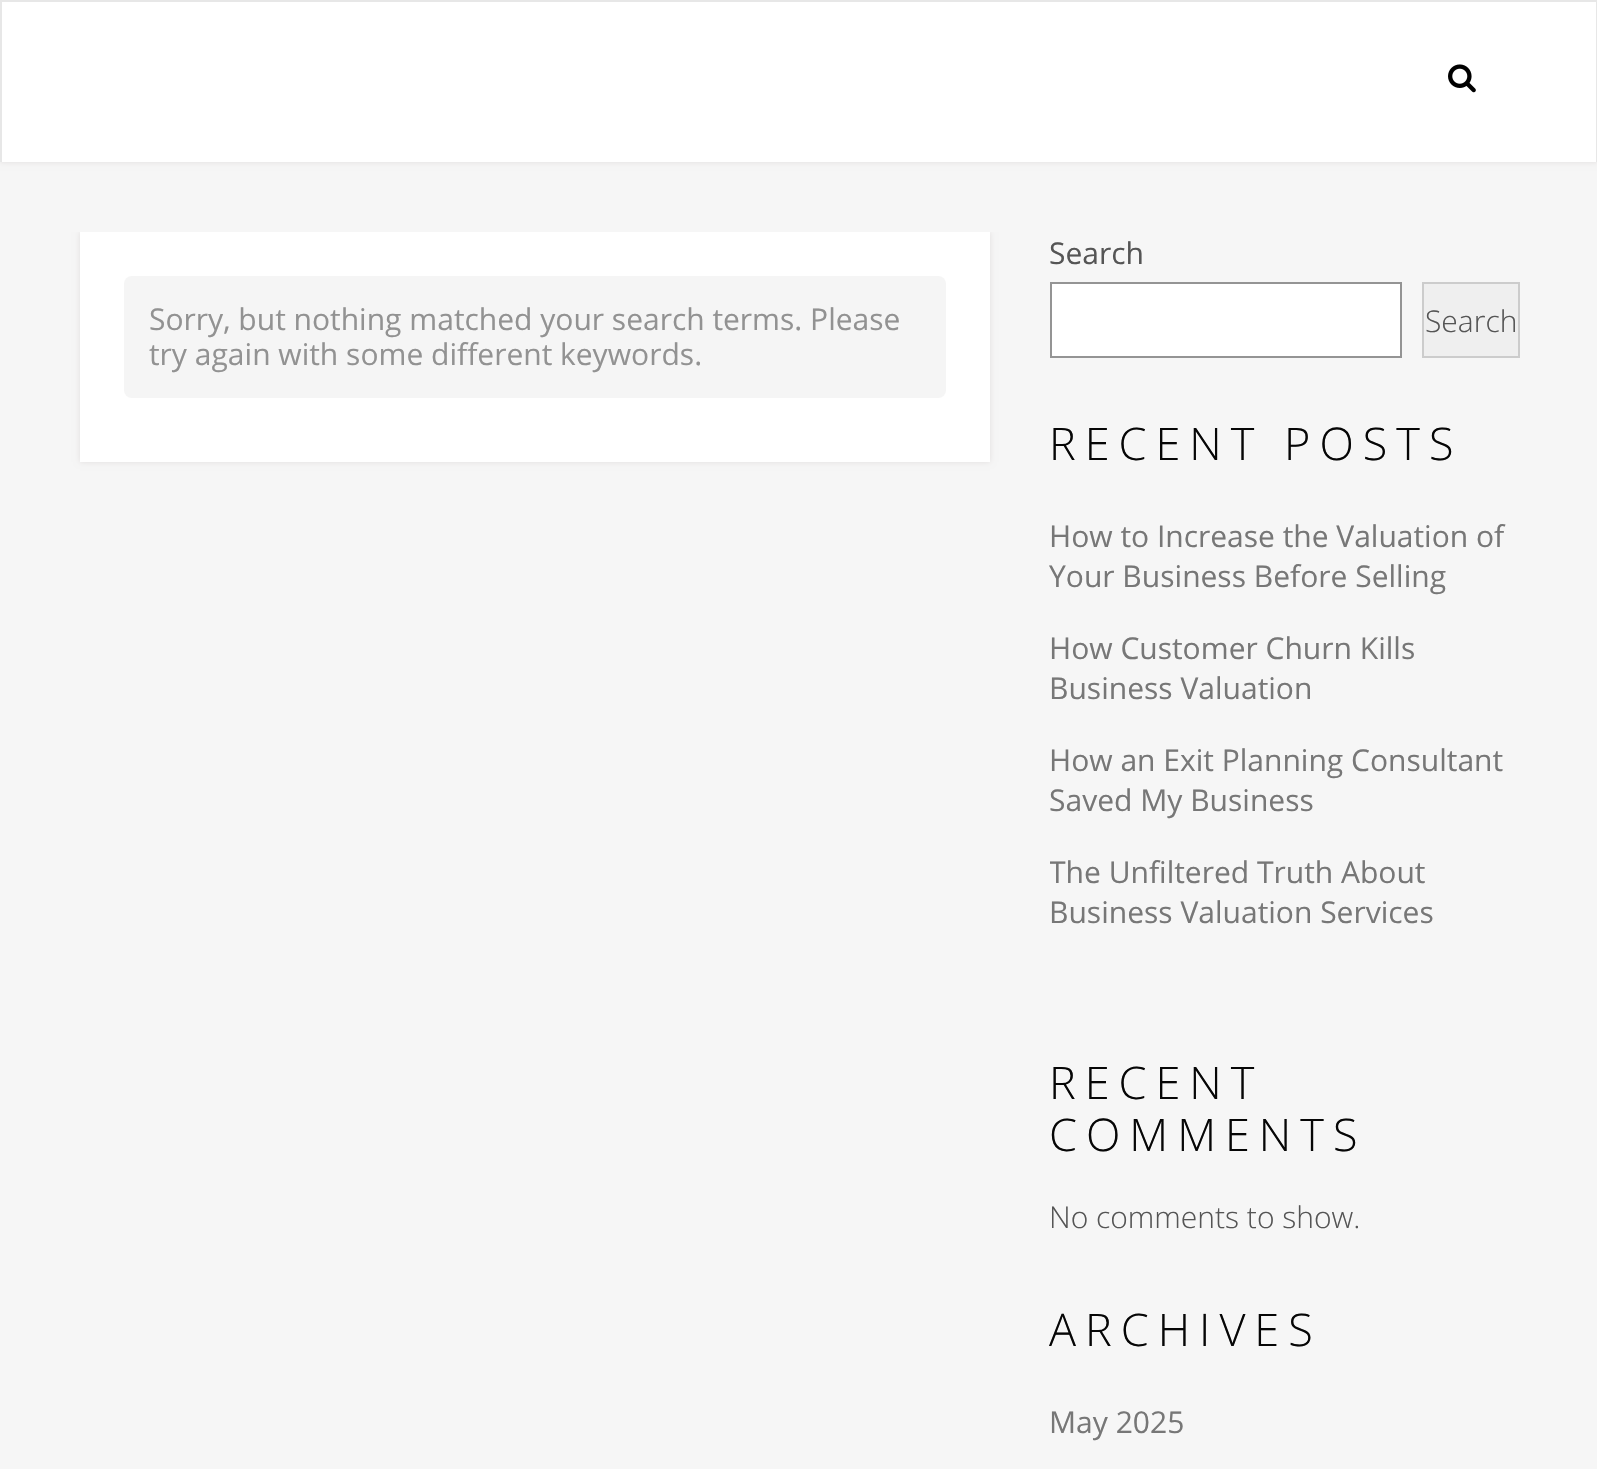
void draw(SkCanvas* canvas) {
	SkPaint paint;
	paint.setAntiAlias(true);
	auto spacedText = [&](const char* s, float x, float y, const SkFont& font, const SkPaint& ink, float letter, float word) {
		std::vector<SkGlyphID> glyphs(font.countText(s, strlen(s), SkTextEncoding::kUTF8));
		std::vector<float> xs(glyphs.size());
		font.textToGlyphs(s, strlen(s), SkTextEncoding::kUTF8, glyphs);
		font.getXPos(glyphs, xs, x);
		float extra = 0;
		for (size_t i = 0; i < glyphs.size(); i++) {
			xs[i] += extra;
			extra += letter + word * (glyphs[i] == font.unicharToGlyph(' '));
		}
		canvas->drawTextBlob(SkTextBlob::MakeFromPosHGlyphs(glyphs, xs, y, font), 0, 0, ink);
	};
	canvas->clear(0xfff6f6f6);
	paint.setColor(0xffe1dede);
	paint.setMaskFilter(SkMaskFilter::MakeBlur(kNormal_SkBlurStyle, 3));
	canvas->drawRect(SkRect::MakeXYWH(0, 0, 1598, 162), paint);
	paint.setMaskFilter(nullptr);
	paint.setColor(0xffffffff);
	canvas->drawRect(SkRect::MakeXYWH(2, 2, 1594, 160), paint);
	paint.setColor(0xffe7e7e7);
	canvas->drawRect(SkRect::MakeXYWH(0, 0, 1597, 2), paint);
	canvas->drawRect(SkRect::MakeXYWH(1596, 0, 1, 162), paint);
	canvas->drawRect(SkRect::MakeXYWH(0, 0, 2, 162), paint);
	canvas->drawImageRect(SkImages::DeferredFromEncodedData(SkData::MakeFromFileName("img1.png")), SkRect::MakeXYWH(1448, 64, 28, 29), SkSamplingOptions());
	canvas->save();
	canvas->clipRect(SkRect::MakeXYWH(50, 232, 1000, 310));
	paint.setColor(0xffe1dede);
	paint.setMaskFilter(SkMaskFilter::MakeBlur(kNormal_SkBlurStyle, 3));
	canvas->drawRect(SkRect::MakeXYWH(80, 232, 910, 230), paint);
	paint.setMaskFilter(nullptr);
	canvas->restore();
	paint.setColor(0xffffffff);
	canvas->drawRect(SkRect::MakeXYWH(80, 232, 910, 230), paint);
	paint.setColor(0xfff5f5f5);
	canvas->drawRoundRect(SkRect::MakeXYWH(124, 276, 822, 122), 8, 8, paint);
	SkFont f1(fontMgr->matchFamilyStyle("Open Sans", SkFontStyle::Normal()), 30);
	f1.setSubpixel(true);
	paint.setColor(0xff929292);
	canvas->drawString("Sorry, but nothing matched your search terms. Please", 149, 330, f1, paint);
	canvas->drawString("try again with some different keywords.", 149, 365, f1, paint);
	paint.setColor(0xff555555);
	canvas->drawString("Search", 1049, 264, f1, paint);
	paint.setColor(0xffffffff);
	canvas->drawRect(SkRect::MakeXYWH(1051, 283, 350, 74), paint);
	paint.setStroke(true);
	paint.setStrokeWidth(2);
	paint.setColor(0xff949494);
	canvas->drawRect(SkRect::MakeXYWH(1051, 283, 350, 74), paint);
	paint.setStroke(false);
	paint.setColor(0xffefefef);
	canvas->drawRect(SkRect::MakeXYWH(1423, 283, 96, 74), paint);
	paint.setStroke(true);
	paint.setColor(0xffcccccc);
	canvas->drawRect(SkRect::MakeXYWH(1423, 283, 96, 74), paint);
	SkFont f2(fontMgr->matchFamilyStyle("Open Sans", SkFontStyle(300, SkFontStyle::kNormal_Width, SkFontStyle::kUpright_Slant)), 30);
	f2.setSubpixel(true);
	paint.setStroke(false);
	paint.setColor(0xff555555);
	canvas->drawString("Search", 1425, 332, f2, paint);
	SkFont f3(fontMgr->matchFamilyStyle("Open Sans", SkFontStyle(300, SkFontStyle::kNormal_Width, SkFontStyle::kUpright_Slant)), 45);
	f3.setSubpixel(true);
	paint.setColor(0xff060606);
	spacedText("RECENT POSTS", 1049, 460, f3, paint, 9, 0);
	paint.setColor(0xff777777);
	canvas->drawString("How to Increase the Valuation of", 1049, 547, f1, paint);
	canvas->drawString("Your Business Before Selling", 1049, 587, f1, paint);
	canvas->drawString("How Customer Churn Kills", 1049, 659, f1, paint);
	canvas->drawString("Business Valuation", 1049, 699, f1, paint);
	canvas->drawString("How an Exit Planning Consultant", 1049, 771, f1, paint);
	canvas->drawString("Saved My Business", 1049, 811, f1, paint);
	canvas->save();
	canvas->clipRect(SkRect::MakeXYWH(1050, 418, 470, 578));
	canvas->drawString("The Unfiltered Truth About", 1049, 883, f1, paint);
	canvas->restore();
	canvas->drawString("Business Valuation Services", 1049, 923, f1, paint);
	paint.setColor(0xff060606);
	spacedText("RECENT", 1049, 1099, f3, paint, 9, 0);
	spacedText("COMMENTS", 1049, 1151, f3, paint, 9, 0);
	paint.setColor(0xff555555);
	canvas->drawString("No comments to show.", 1049, 1228, f2, paint);
	paint.setColor(0xff060606);
	spacedText("ARCHIVES", 1049, 1346, f3, paint, 9, 0);
	paint.setColor(0xff777777);
	canvas->drawString("May 2025", 1049, 1433, f1, paint);
}
